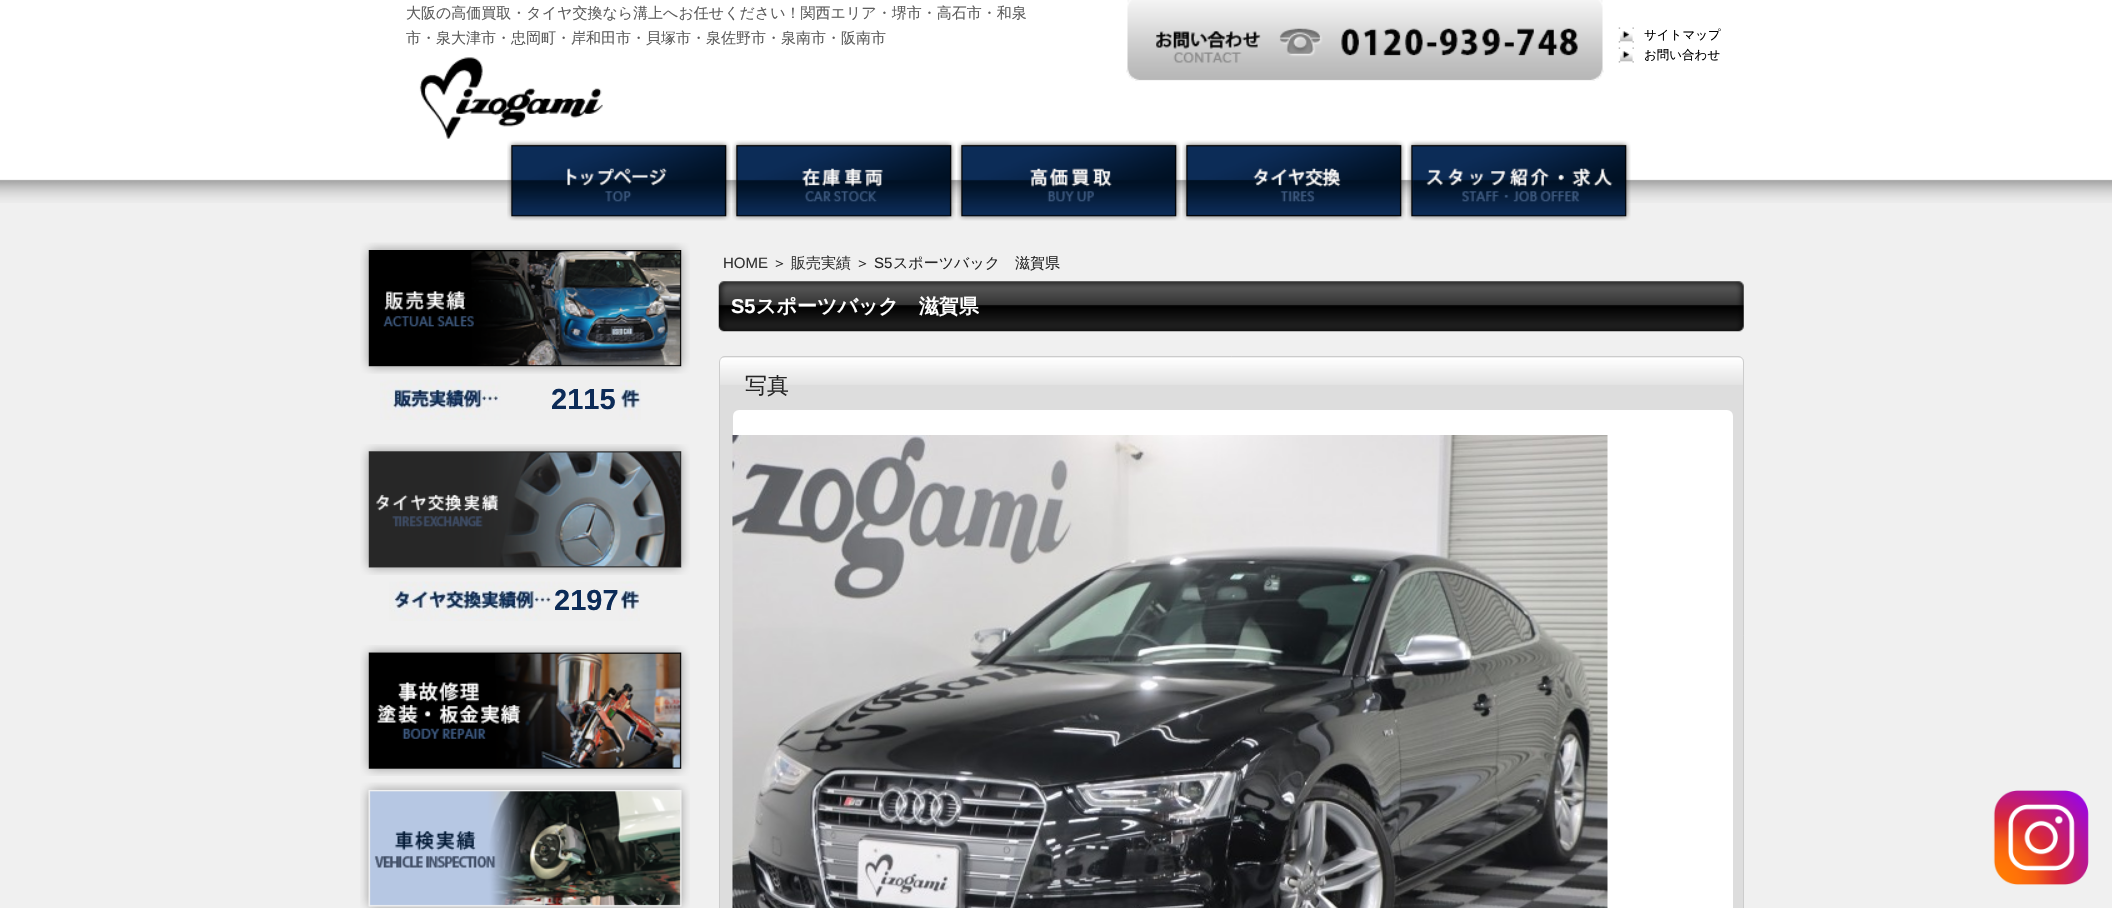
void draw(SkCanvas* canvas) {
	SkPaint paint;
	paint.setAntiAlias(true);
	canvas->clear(0xfff0f0f0);
	canvas->drawImageRect(SkImages::DeferredFromEncodedData(SkData::MakeFromFileName("img1.png")), SkRect::MakeXYWH(0, 0, 2112, 203), SkSamplingOptions());
	SkFont f1(fontMgr->matchFamilyStyle("WenQuanYi Zen Hei", SkFontStyle(500, SkFontStyle::kNormal_Width, SkFontStyle::kUpright_Slant)), 15);
	f1.setSubpixel(true);
	paint.setColor(0xff5d5d5d);
	canvas->drawString("大阪の高価買取・タイヤ交換なら溝上へお任せください！関西エリア・堺市・高石市・和泉", 406, 18, f1, paint);
	canvas->drawString("市・泉大津市・忠岡町・岸和田市・貝塚市・泉佐野市・泉南市・阪南市", 406, 43, f1, paint);
	canvas->drawImageRect(SkImages::DeferredFromEncodedData(SkData::MakeFromFileName("img2.png")), SkRect::MakeXYWH(1126, 0, 478, 81), SkSamplingOptions());
	canvas->drawImageRect(SkImages::DeferredFromEncodedData(SkData::MakeFromFileName("img3.png")), SkRect::MakeXYWH(1618, 27, 16, 16), SkSamplingOptions());
	SkFont f2(fontMgr->matchFamilyStyle("WenQuanYi Zen Hei", SkFontStyle(500, SkFontStyle::kNormal_Width, SkFontStyle::kUpright_Slant)), 12.5);
	f2.setSubpixel(true);
	paint.setColor(0xff000000);
	canvas->drawString("サイトマップ", 1644, 39, f2, paint);
	canvas->drawImageRect(SkImages::DeferredFromEncodedData(SkData::MakeFromFileName("img3.png")), SkRect::MakeXYWH(1618, 47, 16, 16), SkSamplingOptions());
	canvas->drawString("お問い合わせ", 1644, 59, f2, paint);
	canvas->drawImageRect(SkImages::DeferredFromEncodedData(SkData::MakeFromFileName("img4.png")), SkRect::MakeXYWH(419, 57, 184, 82), SkSamplingOptions());
	canvas->drawImageRect(SkImages::DeferredFromEncodedData(SkData::MakeFromFileName("img5.png")), SkRect::MakeXYWH(507, 140, 224, 81), SkSamplingOptions());
	canvas->drawImageRect(SkImages::DeferredFromEncodedData(SkData::MakeFromFileName("img6.png")), SkRect::MakeXYWH(732, 140, 224, 81), SkSamplingOptions());
	canvas->drawImageRect(SkImages::DeferredFromEncodedData(SkData::MakeFromFileName("img7.png")), SkRect::MakeXYWH(957, 140, 224, 81), SkSamplingOptions());
	canvas->drawImageRect(SkImages::DeferredFromEncodedData(SkData::MakeFromFileName("img8.png")), SkRect::MakeXYWH(1182, 140, 224, 81), SkSamplingOptions());
	canvas->drawImageRect(SkImages::DeferredFromEncodedData(SkData::MakeFromFileName("img9.png")), SkRect::MakeXYWH(1407, 140, 224, 81), SkSamplingOptions());
	SkFont f3(fontMgr->matchFamilyStyle("Liberation Sans", SkFontStyle::Normal()), 15);
	f3.setSubpixel(true);
	paint.setColor(0xff333333);
	canvas->drawString("HOME", 723, 268, f3, paint);
	paint.setColor(0xff272727);
	canvas->drawString("＞", 772, 268, f1, paint);
	paint.setColor(0xff333333);
	canvas->drawString("販売実績", 791, 268, f1, paint);
	paint.setColor(0xff272727);
	canvas->drawString("＞", 855, 268, f1, paint);
	canvas->drawString("S5", 874, 268, f3, paint);
	canvas->drawString("スポーツバック　滋賀県", 893, 268, f1, paint);
	canvas->drawImageRect(SkImages::DeferredFromEncodedData(SkData::MakeFromFileName("img10.png")), SkRect::MakeXYWH(718, 281, 1026, 51), SkSamplingOptions());
	SkFont f4(fontMgr->matchFamilyStyle("Liberation Sans", SkFontStyle::Bold()), 20);
	f4.setSubpixel(true);
	paint.setColor(0xffffffff);
	canvas->drawString("S5", 731, 313, f4, paint);
	SkFont f5(fontMgr->matchFamilyStyle("WenQuanYi Zen Hei", SkFontStyle::Bold()), 20);
	f5.setSubpixel(true);
	canvas->drawString("スポーツバック　滋賀県", 756, 313, f5, paint);
	paint.setColor(0xffdddddd);
	canvas->drawRoundRect(SkRect::MakeXYWH(719, 356, 1025, 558), 6, 6, paint);
	canvas->drawImageRect(SkImages::DeferredFromEncodedData(SkData::MakeFromFileName("img11.png")), SkRect::MakeXYWH(719, 357, 1025, 28), SkSamplingOptions());
	paint.setStroke(true);
	paint.setStrokeWidth(1);
	paint.setColor(0xffcccccc);
	canvas->drawRoundRect(SkRect::MakeXYWH(719.5, 356.5, 1024, 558), 5.5, 5.5, paint);
	SkFont f6(fontMgr->matchFamilyStyle("WenQuanYi Zen Hei", SkFontStyle(500, SkFontStyle::kNormal_Width, SkFontStyle::kUpright_Slant)), 22);
	f6.setSubpixel(true);
	paint.setStroke(false);
	paint.setColor(0xff272727);
	canvas->drawString("写真", 745, 393, f6, paint);
	paint.setColor(0xffffffff);
	canvas->drawRoundRect(SkRect::MakeXYWH(733, 410, 1000, 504), 6, 6, paint);
	canvas->drawImageRect(SkImages::DeferredFromEncodedData(SkData::MakeFromFileName("img12.png")), SkRect::MakeXYWH(732, 435, 876, 473), SkSamplingOptions());
	canvas->drawImageRect(SkImages::DeferredFromEncodedData(SkData::MakeFromFileName("img13.png")), SkRect::MakeXYWH(360, 242, 330, 132), SkSamplingOptions());
	canvas->drawImageRect(SkImages::DeferredFromEncodedData(SkData::MakeFromFileName("img14.png")), SkRect::MakeXYWH(368, 250, 314, 117), SkSamplingOptions());
	canvas->drawImageRect(SkImages::DeferredFromEncodedData(SkData::MakeFromFileName("img15.png")), SkRect::MakeXYWH(380, 380, 261, 40), SkSamplingOptions());
	SkFont f7(fontMgr->matchFamilyStyle("Liberation Sans", SkFontStyle::Bold()), 29);
	f7.setSubpixel(true);
	paint.setColor(0xff0c2b57);
	canvas->drawString("2115", 551, 409, f7, paint);
	canvas->drawImageRect(SkImages::DeferredFromEncodedData(SkData::MakeFromFileName("img16.png")), SkRect::MakeXYWH(360, 444, 330, 131), SkSamplingOptions());
	canvas->drawImageRect(SkImages::DeferredFromEncodedData(SkData::MakeFromFileName("img17.png")), SkRect::MakeXYWH(368, 451, 314, 117), SkSamplingOptions());
	canvas->drawImageRect(SkImages::DeferredFromEncodedData(SkData::MakeFromFileName("img18.png")), SkRect::MakeXYWH(389, 581, 251, 40), SkSamplingOptions());
	canvas->drawString("2197", 554, 610, f7, paint);
	canvas->drawImageRect(SkImages::DeferredFromEncodedData(SkData::MakeFromFileName("img19.png")), SkRect::MakeXYWH(360, 645, 330, 131), SkSamplingOptions());
	canvas->drawImageRect(SkImages::DeferredFromEncodedData(SkData::MakeFromFileName("img20.png")), SkRect::MakeXYWH(368, 652, 314, 117), SkSamplingOptions());
	canvas->drawImageRect(SkImages::DeferredFromEncodedData(SkData::MakeFromFileName("img21.png")), SkRect::MakeXYWH(360, 782, 330, 126), SkSamplingOptions());
	canvas->drawImageRect(SkImages::DeferredFromEncodedData(SkData::MakeFromFileName("img22.png")), SkRect::MakeXYWH(368, 790, 314, 117), SkSamplingOptions());
	canvas->drawImageRect(SkImages::DeferredFromEncodedData(SkData::MakeFromFileName("img23.png")), SkRect::MakeXYWH(1993, 790, 96, 95), SkSamplingOptions());
}
